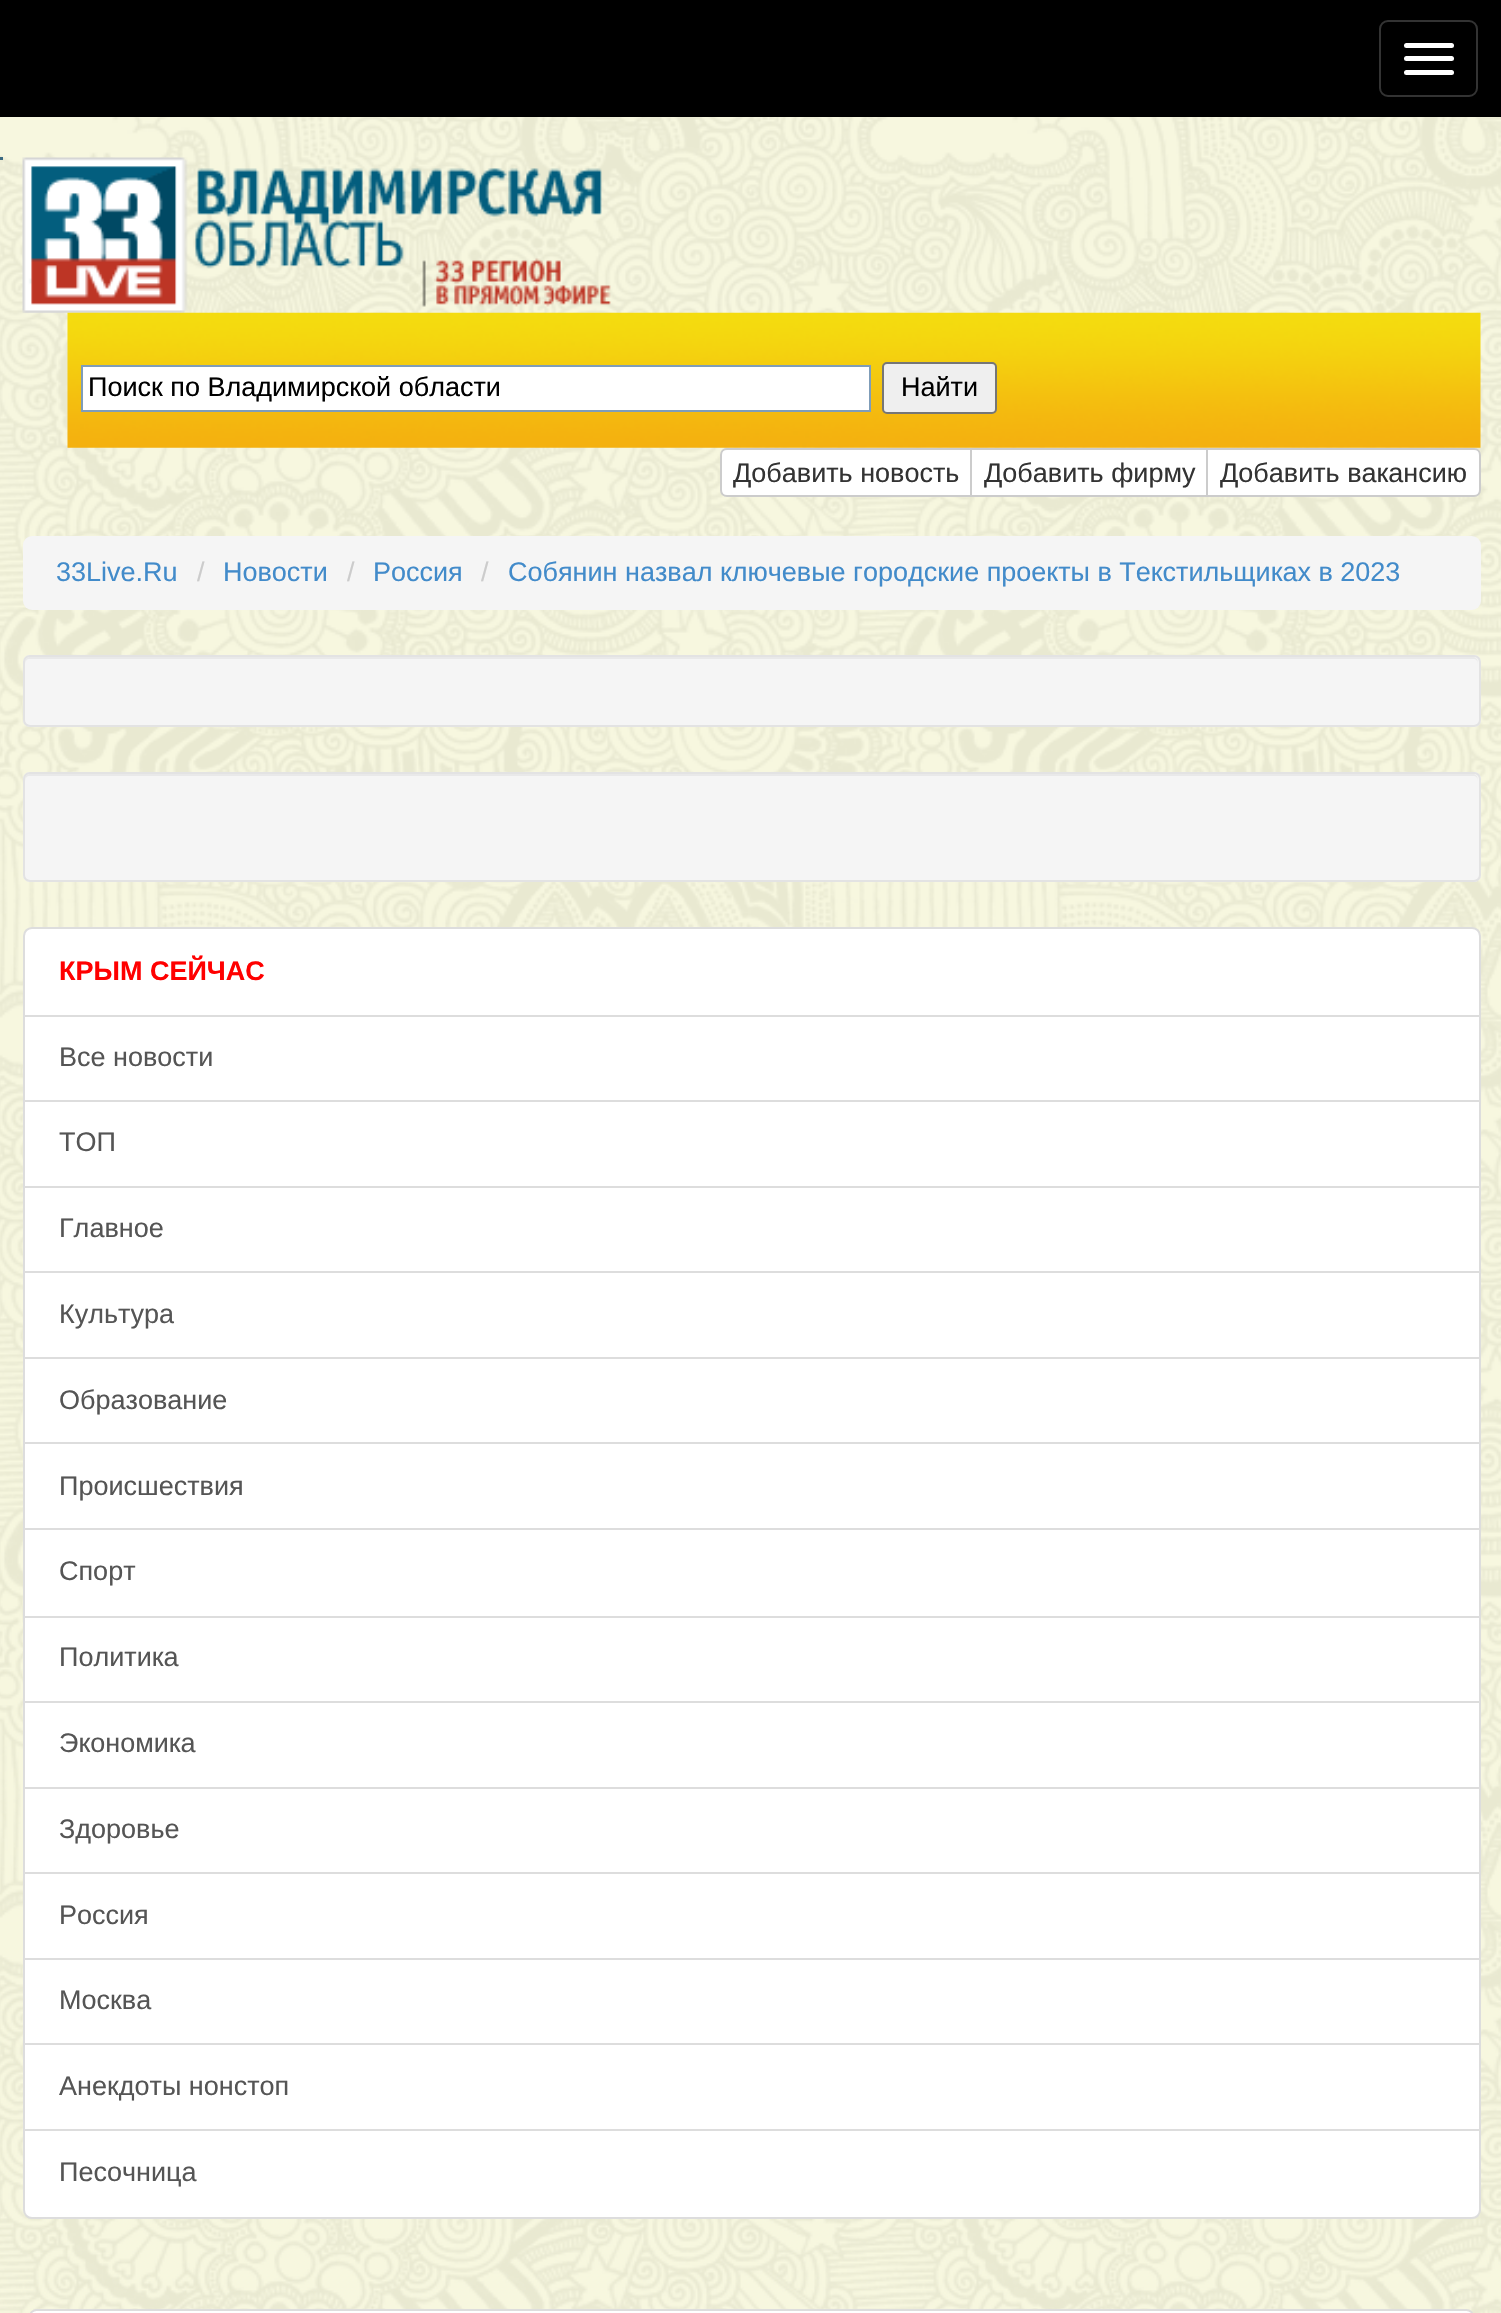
void draw(SkCanvas* canvas) {
	SkPaint paint;
	paint.setAntiAlias(true);
	auto svgPath = [&](const char* data, bool evenOdd = false) {
		SkPath result = *SkParsePath::FromSVGString(data);
		if (evenOdd) result.setFillType(SkPathFillType::kEvenOdd);
		return result;
	};
	canvas->clear(0xffffffff);
	canvas->drawImageRect(SkImages::DeferredFromEncodedData(SkData::MakeFromFileName("img1.png")), SkRect::MakeXYWH(0, 117, 1501, 2196), SkSamplingOptions());
	paint.setColor(0xff000000);
	canvas->drawRect(SkRect::MakeXYWH(0, 0, 1501, 117), paint);
	paint.setStroke(true);
	paint.setStrokeWidth(2);
	paint.setColor(0xff333333);
	canvas->drawRoundRect(SkRect::MakeXYWH(1380, 21, 97, 75), 8, 8, paint);
	paint.setStroke(false);
	paint.setColor(0xffffffff);
	canvas->drawRoundRect(SkRect::MakeXYWH(1404, 43, 50, 5), 2.5, 2.5, paint);
	canvas->drawRoundRect(SkRect::MakeXYWH(1404, 56, 50, 5), 2.5, 2.5, paint);
	canvas->drawRoundRect(SkRect::MakeXYWH(1404, 70, 50, 5), 2.5, 2.5, paint);
	paint.setColor(0xff3b6a81);
	canvas->drawRect(SkRect::MakeXYWH(0, 157, 3, 3), paint);
	canvas->drawImageRect(SkImages::DeferredFromEncodedData(SkData::MakeFromFileName("img2.png")), SkRect::MakeXYWH(22, 157, 589, 156), SkSamplingOptions());
	canvas->drawImageRect(SkImages::DeferredFromEncodedData(SkData::MakeFromFileName("img3.png")), SkRect::MakeXYWH(67, 312, 1414, 136), SkSamplingOptions());
	paint.setColor(0xffffffff);
	canvas->drawRect(SkRect::MakeXYWH(82, 366, 788, 45), paint);
	paint.setStroke(true);
	paint.setColor(0xff7f9db9);
	canvas->drawRect(SkRect::MakeXYWH(82, 366, 788, 45), paint);
	SkFont f1(fontMgr->matchFamilyStyle("Liberation Sans", SkFontStyle::Normal()), 27);
	f1.setSubpixel(true);
	paint.setStroke(false);
	paint.setColor(0xff000000);
	canvas->drawString("Поиск по Владимирской области", 88, 396, f1, paint);
	paint.setColor(0xffefefef);
	canvas->drawRoundRect(SkRect::MakeXYWH(883, 363, 113, 50), 4, 4, paint);
	paint.setStroke(true);
	paint.setColor(0xff767676);
	canvas->drawRoundRect(SkRect::MakeXYWH(883, 363, 113, 50), 4, 4, paint);
	paint.setStroke(false);
	paint.setColor(0xff000000);
	canvas->drawString("Найти", 901, 396, f1, paint);
	paint.setColor(0xffffffff);
	canvas->drawPath(svgPath("M727 449H971V496H727C723.5 496 721 493.5 721 490V455C721 451.5 723.5 449 727 449Z"), paint);
	paint.setStroke(true);
	paint.setColor(0xffcccccc);
	canvas->drawPath(svgPath("M727 449H971V496H727C723.5 496 721 493.5 721 490V455C721 451.5 723.5 449 727 449Z"), paint);
	paint.setStroke(false);
	paint.setColor(0xff333333);
	canvas->drawString("Добавить новость", 733, 482, f1, paint);
	paint.setColor(0xffffffff);
	canvas->drawRect(SkRect::MakeXYWH(971, 449, 236, 47), paint);
	paint.setStroke(true);
	paint.setColor(0xffcccccc);
	canvas->drawRect(SkRect::MakeXYWH(971, 449, 236, 47), paint);
	paint.setStroke(false);
	paint.setColor(0xff333333);
	canvas->drawString("Добавить фирму", 984, 482, f1, paint);
	paint.setColor(0xffffffff);
	canvas->drawPath(svgPath("M1207 449H1474C1477.5 449 1480 451.5 1480 455V490C1480 493.5 1477.5 496 1474 496H1207Z"), paint);
	paint.setStroke(true);
	paint.setColor(0xffcccccc);
	canvas->drawPath(svgPath("M1207 449H1474C1477.5 449 1480 451.5 1480 455V490C1480 493.5 1477.5 496 1474 496H1207Z"), paint);
	paint.setStroke(false);
	paint.setColor(0xff333333);
	canvas->drawString("Добавить вакансию", 1220, 482, f1, paint);
	paint.setColor(0xfff5f5f5);
	canvas->drawRoundRect(SkRect::MakeXYWH(23, 536, 1458, 74), 9, 9, paint);
	paint.setColor(0xff428bca);
	canvas->drawString("33Live.Ru", 56, 581, f1, paint);
	paint.setColor(0xffcccccc);
	canvas->drawString("/", 197, 581, f1, paint);
	paint.setColor(0xff428bca);
	canvas->drawString("Новости", 223, 581, f1, paint);
	paint.setColor(0xffcccccc);
	canvas->drawString("/", 347, 581, f1, paint);
	paint.setColor(0xff428bca);
	canvas->drawString("Россия", 373, 581, f1, paint);
	paint.setColor(0xffcccccc);
	canvas->drawString("/", 481, 581, f1, paint);
	paint.setColor(0xff428bca);
	canvas->drawString("Собянин назвал ключевые городские проекты в Текстильщиках в 2023", 508, 581, f1, paint);
	paint.setColor(0xfff5f5f5);
	canvas->drawRoundRect(SkRect::MakeXYWH(23, 655, 1458, 72), 7, 7, paint);
	paint.setColor(0xffe9e9e9);
	canvas->drawPath(svgPath("M29 659H1474C1476 659 1478 661 1478 664C1478 661 1477 657 1473 657H30C26 657 25 661 25 664C25 661 27 659 29 659Z"), paint);
	paint.setStroke(true);
	paint.setColor(0xffe3e3e3);
	canvas->drawRoundRect(SkRect::MakeXYWH(24, 656, 1456, 70), 6, 6, paint);
	paint.setStroke(false);
	paint.setColor(0xfff5f5f5);
	canvas->drawRoundRect(SkRect::MakeXYWH(23, 772, 1458, 110), 7, 7, paint);
	paint.setColor(0xffe9e9e9);
	canvas->drawPath(svgPath("M29 776H1474C1476 776 1478 778 1478 781C1478 778 1477 774 1473 774H30C26 774 25 778 25 781C25 778 27 776 29 776Z"), paint);
	paint.setStroke(true);
	paint.setColor(0xffe3e3e3);
	canvas->drawRoundRect(SkRect::MakeXYWH(24, 773, 1456, 108), 6, 6, paint);
	paint.setStroke(false);
	paint.setColor(0xffffffff);
	canvas->drawPath(svgPath("M32 928H1472C1476.5 928 1480 931.5 1480 936V1016H24V936C24 931.5 27.5 928 32 928Z"), paint);
	paint.setStroke(true);
	paint.setColor(0xffdddddd);
	canvas->drawPath(svgPath("M32 928H1472C1476.5 928 1480 931.5 1480 936V1016H24V936C24 931.5 27.5 928 32 928Z"), paint);
	SkFont f2(fontMgr->matchFamilyStyle("Liberation Sans", SkFontStyle::Bold()), 27);
	f2.setSubpixel(true);
	paint.setStroke(false);
	paint.setColor(0xffff0000);
	canvas->drawString("КРЫМ СЕЙЧАС", 59, 980, f2, paint);
	paint.setColor(0xffffffff);
	canvas->drawRect(SkRect::MakeXYWH(25, 1017, 1454, 83), paint);
	paint.setStroke(true);
	paint.setColor(0xffdddddd);
	canvas->drawRect(SkRect::MakeXYWH(24, 1016, 1456, 86), paint);
	paint.setStroke(false);
	paint.setColor(0xff555555);
	canvas->drawString("Все новости", 59, 1066, f1, paint);
	paint.setColor(0xffffffff);
	canvas->drawRect(SkRect::MakeXYWH(24, 1101, 1456, 86), paint);
	paint.setStroke(true);
	paint.setColor(0xffdddddd);
	canvas->drawRect(SkRect::MakeXYWH(24, 1101, 1456, 86), paint);
	paint.setStroke(false);
	paint.setColor(0xff555555);
	canvas->drawString("ТОП", 59, 1151, f1, paint);
	paint.setColor(0xffffffff);
	canvas->drawRect(SkRect::MakeXYWH(25, 1188, 1454, 83), paint);
	paint.setStroke(true);
	paint.setColor(0xffdddddd);
	canvas->drawRect(SkRect::MakeXYWH(24, 1187, 1456, 86), paint);
	paint.setStroke(false);
	paint.setColor(0xff555555);
	canvas->drawString("Главное", 59, 1237, f1, paint);
	paint.setColor(0xffffffff);
	canvas->drawRect(SkRect::MakeXYWH(24, 1272, 1456, 86), paint);
	paint.setStroke(true);
	paint.setColor(0xffdddddd);
	canvas->drawRect(SkRect::MakeXYWH(24, 1272, 1456, 86), paint);
	paint.setStroke(false);
	paint.setColor(0xff555555);
	canvas->drawString("Культура", 59, 1323, f1, paint);
	paint.setColor(0xffffffff);
	canvas->drawRect(SkRect::MakeXYWH(25, 1359, 1454, 83), paint);
	paint.setStroke(true);
	paint.setColor(0xffdddddd);
	canvas->drawRect(SkRect::MakeXYWH(24, 1358, 1456, 86), paint);
	paint.setStroke(false);
	paint.setColor(0xff555555);
	canvas->drawString("Образование", 59, 1409, f1, paint);
	paint.setColor(0xffffffff);
	canvas->drawRect(SkRect::MakeXYWH(24, 1443, 1456, 86), paint);
	paint.setStroke(true);
	paint.setColor(0xffdddddd);
	canvas->drawRect(SkRect::MakeXYWH(24, 1443, 1456, 86), paint);
	paint.setStroke(false);
	paint.setColor(0xff555555);
	canvas->drawString("Происшествия", 59, 1495, f1, paint);
	paint.setColor(0xffffffff);
	canvas->drawRect(SkRect::MakeXYWH(24, 1529, 1456, 88), paint);
	paint.setStroke(true);
	paint.setColor(0xffdddddd);
	canvas->drawRect(SkRect::MakeXYWH(24, 1529, 1456, 88), paint);
	paint.setStroke(false);
	paint.setColor(0xff555555);
	canvas->drawString("Спорт", 59, 1580, f1, paint);
	paint.setColor(0xffffffff);
	canvas->drawRect(SkRect::MakeXYWH(24, 1617, 1456, 85), paint);
	paint.setStroke(true);
	paint.setColor(0xffdddddd);
	canvas->drawRect(SkRect::MakeXYWH(24, 1617, 1456, 85), paint);
	paint.setStroke(false);
	paint.setColor(0xff555555);
	canvas->drawString("Политика", 59, 1666, f1, paint);
	paint.setColor(0xffffffff);
	canvas->drawRect(SkRect::MakeXYWH(24, 1702, 1456, 86), paint);
	paint.setStroke(true);
	paint.setColor(0xffdddddd);
	canvas->drawRect(SkRect::MakeXYWH(24, 1702, 1456, 86), paint);
	paint.setStroke(false);
	paint.setColor(0xff555555);
	canvas->drawString("Экономика", 59, 1752, f1, paint);
	paint.setColor(0xffffffff);
	canvas->drawRect(SkRect::MakeXYWH(24, 1788, 1456, 85), paint);
	paint.setStroke(true);
	paint.setColor(0xffdddddd);
	canvas->drawRect(SkRect::MakeXYWH(24, 1788, 1456, 85), paint);
	paint.setStroke(false);
	paint.setColor(0xff555555);
	canvas->drawString("Здоровье", 59, 1838, f1, paint);
	paint.setColor(0xffffffff);
	canvas->drawRect(SkRect::MakeXYWH(24, 1873, 1456, 86), paint);
	paint.setStroke(true);
	paint.setColor(0xffdddddd);
	canvas->drawRect(SkRect::MakeXYWH(24, 1873, 1456, 86), paint);
	paint.setStroke(false);
	paint.setColor(0xff555555);
	canvas->drawString("Россия", 59, 1924, f1, paint);
	paint.setColor(0xffffffff);
	canvas->drawRect(SkRect::MakeXYWH(24, 1959, 1456, 85), paint);
	paint.setStroke(true);
	paint.setColor(0xffdddddd);
	canvas->drawRect(SkRect::MakeXYWH(24, 1959, 1456, 85), paint);
	paint.setStroke(false);
	paint.setColor(0xff555555);
	canvas->drawString("Москва", 59, 2009, f1, paint);
	paint.setColor(0xffffffff);
	canvas->drawRect(SkRect::MakeXYWH(24, 2044, 1456, 86), paint);
	paint.setStroke(true);
	paint.setColor(0xffdddddd);
	canvas->drawRect(SkRect::MakeXYWH(24, 2044, 1456, 86), paint);
	paint.setStroke(false);
	paint.setColor(0xff555555);
	canvas->drawString("Анекдоты нонстоп", 59, 2095, f1, paint);
	paint.setColor(0xffffffff);
	canvas->drawPath(svgPath("M24 2130H1480V2210C1480 2214.5 1476.5 2218 1472 2218H32C27.5 2218 24 2214.5 24 2210Z"), paint);
	paint.setStroke(true);
	paint.setColor(0xffdddddd);
	canvas->drawPath(svgPath("M24 2130H1480V2210C1480 2214.5 1476.5 2218 1472 2218H32C27.5 2218 24 2214.5 24 2210Z"), paint);
	paint.setStroke(false);
	paint.setColor(0xff555555);
	canvas->drawString("Песочница", 59, 2181, f1, paint);
	paint.setColor(0xffffffff);
	canvas->drawRoundRect(SkRect::MakeXYWH(30, 2310, 1443, 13), 8, 8, paint);
	paint.setStroke(true);
	paint.setColor(0xffdddddd);
	canvas->drawRoundRect(SkRect::MakeXYWH(30, 2310, 1443, 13), 8, 8, paint);
}
